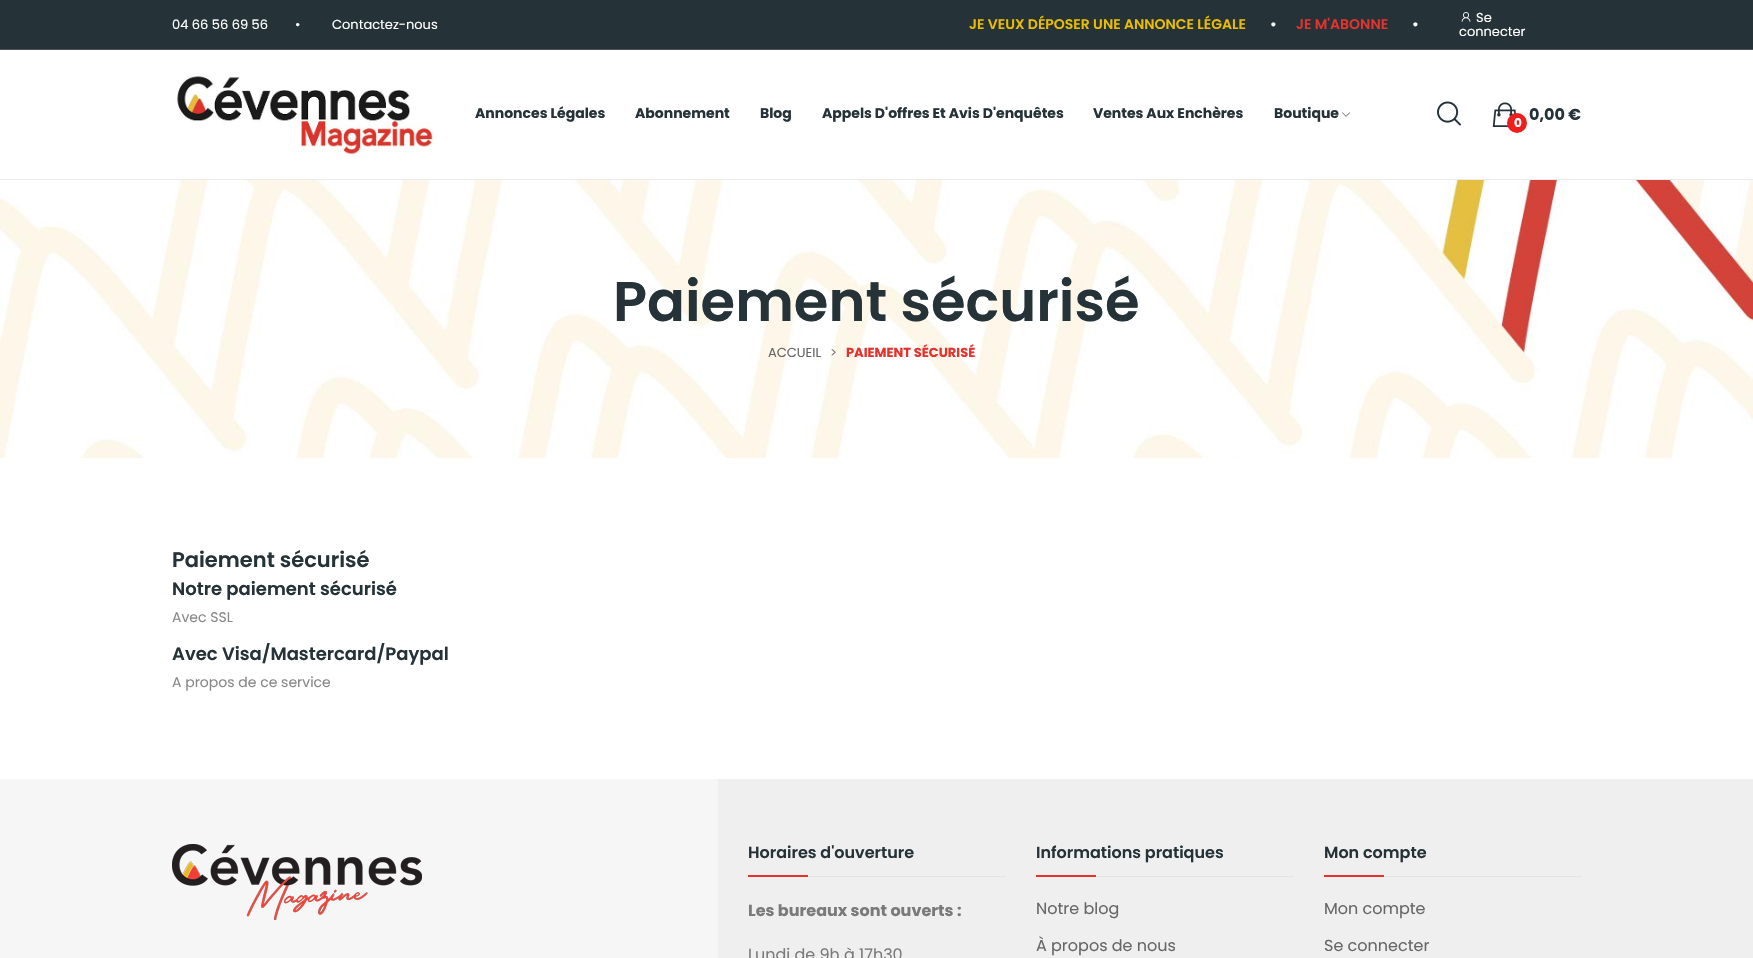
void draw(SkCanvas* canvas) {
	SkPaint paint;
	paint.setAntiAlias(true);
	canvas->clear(0xffffffff);
	paint.setColor(0xffebebeb);
	canvas->drawRect(SkRect::MakeXYWH(0, 179, 1753, 1), paint);
	paint.setColor(0xff253237);
	canvas->drawRect(SkRect::MakeXYWH(0, 0, 1753, 49), paint);
	paint.setColor(0xff4a5559);
	canvas->drawRect(SkRect::MakeXYWH(0, 49, 1753, 1), paint);
	SkFont f1(fontMgr->matchFamilyStyle("Poppins", SkFontStyle::Normal()), 13);
	f1.setSubpixel(true);
	paint.setColor(0xffffffff);
	canvas->drawString("04 66 56 69 56", 172, 29, f1, paint);
	canvas->drawString("•", 295, 29, f1, paint);
	canvas->drawString("Contactez-nous", 332, 29, f1, paint);
	SkFont f2(fontMgr->matchFamilyStyle("Poppins", SkFontStyle(600, SkFontStyle::kNormal_Width, SkFontStyle::kUpright_Slant)), 14);
	f2.setSubpixel(true);
	paint.setColor(0xffeabd00);
	canvas->drawString("JE VEUX DÉPOSER UNE ANNONCE LÉGALE", 969, 29, f2, paint);
	paint.setColor(0xffffffff);
	canvas->drawString("•", 1270, 29, f2, paint);
	paint.setColor(0xffe5322d);
	canvas->drawString("JE M'ABONNE", 1296, 29, f2, paint);
	paint.setColor(0xffffffff);
	canvas->drawString("•", 1412, 29, f2, paint);
	canvas->drawImageRect(SkImages::DeferredFromEncodedData(SkData::MakeFromFileName("img1.png")), SkRect::MakeXYWH(1461, 12, 10, 10), SkSamplingOptions());
	canvas->drawString("Se", 1476, 22, f1, paint);
	canvas->drawString("connecter", 1459, 36, f1, paint);
	canvas->drawImageRect(SkImages::DeferredFromEncodedData(SkData::MakeFromFileName("img2.png")), SkRect::MakeXYWH(177, 76, 260, 81), SkSamplingOptions());
	SkFont f3(fontMgr->matchFamilyStyle("Poppins", SkFontStyle::Bold()), 14);
	f3.setSubpixel(true);
	paint.setColor(0xff253237);
	canvas->drawString("Annonces Légales", 475, 118, f3, paint);
	canvas->drawString("Abonnement", 635, 118, f3, paint);
	canvas->drawString("Blog", 760, 118, f3, paint);
	canvas->drawString("Appels D'offres Et Avis D'enquêtes", 822, 118, f3, paint);
	canvas->drawString("Ventes Aux Enchères", 1093, 118, f3, paint);
	canvas->drawString("Boutique", 1274, 118, f3, paint);
	canvas->drawImageRect(SkImages::DeferredFromEncodedData(SkData::MakeFromFileName("img3.png")), SkRect::MakeXYWH(1342, 112, 8, 5), SkSamplingOptions());
	canvas->drawImageRect(SkImages::DeferredFromEncodedData(SkData::MakeFromFileName("img4.png")), SkRect::MakeXYWH(1437, 101, 24, 25), SkSamplingOptions());
	canvas->drawImageRect(SkImages::DeferredFromEncodedData(SkData::MakeFromFileName("img5.png")), SkRect::MakeXYWH(1492, 102, 24, 25), SkSamplingOptions());
	paint.setColor(0xffef1e1e);
	canvas->drawCircle(1517, 123, 10, paint);
	SkFont f4(fontMgr->matchFamilyStyle("Poppins", SkFontStyle::Bold()), 12);
	f4.setSubpixel(true);
	paint.setColor(0xffffffff);
	canvas->drawString("0", 1514, 127, f4, paint);
	SkFont f5(fontMgr->matchFamilyStyle("Poppins", SkFontStyle::Bold()), 16);
	f5.setSubpixel(true);
	paint.setColor(0xff253237);
	canvas->drawString("0,00 €", 1529, 120, f5, paint);
	canvas->drawImageRect(SkImages::DeferredFromEncodedData(SkData::MakeFromFileName("img6.png")), SkRect::MakeXYWH(0, 180, 1753, 278), SkSamplingOptions());
	SkFont f6(fontMgr->matchFamilyStyle("Poppins", SkFontStyle(600, SkFontStyle::kNormal_Width, SkFontStyle::kUpright_Slant)), 56);
	f6.setSubpixel(true);
	canvas->drawString("Paiement sécurisé", 613, 321, f6, paint);
	paint.setColor(0xff666666);
	canvas->drawString("ACCUEIL", 768, 357, f1, paint);
	paint.setColor(0xff7a7a7a);
	canvas->drawString(">", 830, 357, f1, paint);
	SkFont f7(fontMgr->matchFamilyStyle("Poppins", SkFontStyle::Bold()), 13);
	f7.setSubpixel(true);
	paint.setColor(0xffe5322d);
	canvas->drawString("PAIEMENT SÉCURISÉ", 846, 357, f7, paint);
	SkFont f8(fontMgr->matchFamilyStyle("Poppins", SkFontStyle(600, SkFontStyle::kNormal_Width, SkFontStyle::kUpright_Slant)), 21);
	f8.setSubpixel(true);
	paint.setColor(0xff253237);
	canvas->drawString("Paiement sécurisé", 172, 567, f8, paint);
	SkFont f9(fontMgr->matchFamilyStyle("Poppins", SkFontStyle(600, SkFontStyle::kNormal_Width, SkFontStyle::kUpright_Slant)), 18);
	f9.setSubpixel(true);
	canvas->drawString("Notre paiement sécurisé", 172, 595, f9, paint);
	SkFont f10(fontMgr->matchFamilyStyle("Poppins", SkFontStyle::Normal()), 14);
	f10.setSubpixel(true);
	paint.setColor(0xff888888);
	canvas->drawString("Avec SSL", 172, 622, f10, paint);
	paint.setColor(0xff253237);
	canvas->drawString("Avec Visa/Mastercard/Paypal", 172, 660, f9, paint);
	paint.setColor(0xff888888);
	canvas->drawString("A propos de ce service", 172, 687, f10, paint);
	paint.setColor(0xffefefef);
	canvas->drawRect(SkRect::MakeXYWH(718, 779, 1035, 179), paint);
	paint.setColor(0xfff6f6f6);
	canvas->drawRect(SkRect::MakeXYWH(0, 779, 718, 179), paint);
	canvas->drawImageRect(SkImages::DeferredFromEncodedData(SkData::MakeFromFileName("img7.png")), SkRect::MakeXYWH(172, 844, 250, 76), SkSamplingOptions());
	paint.setColor(0xffe3e3e3);
	canvas->drawRect(SkRect::MakeXYWH(808, 876, 198, 1), paint);
	SkFont f11(fontMgr->matchFamilyStyle("Poppins", SkFontStyle(600, SkFontStyle::kNormal_Width, SkFontStyle::kUpright_Slant)), 16);
	f11.setSubpixel(true);
	paint.setColor(0xff253237);
	canvas->drawString("Horaires d'ouverture", 748, 858, f11, paint);
	paint.setColor(0xffe5322d);
	canvas->drawRect(SkRect::MakeXYWH(748, 875, 60, 2), paint);
	paint.setColor(0xff7a7a7a);
	canvas->drawString("Les bureaux sont ouverts :", 748, 916, f5, paint);
	SkFont f12(fontMgr->matchFamilyStyle("Poppins", SkFontStyle::Normal()), 16);
	f12.setSubpixel(true);
	canvas->drawString("Lundi de 9h à 17h30", 748, 960, f12, paint);
	paint.setColor(0xffe3e3e3);
	canvas->drawRect(SkRect::MakeXYWH(1096, 876, 198, 1), paint);
	paint.setColor(0xff253237);
	canvas->drawString("Informations pratiques", 1036, 858, f11, paint);
	paint.setColor(0xffe5322d);
	canvas->drawRect(SkRect::MakeXYWH(1036, 875, 60, 2), paint);
	paint.setColor(0xff666666);
	canvas->drawString("Notre blog", 1036, 914, f12, paint);
	canvas->drawString("À propos de nous", 1036, 951, f12, paint);
	paint.setColor(0xffe3e3e3);
	canvas->drawRect(SkRect::MakeXYWH(1384, 876, 198, 1), paint);
	paint.setColor(0xff253237);
	canvas->drawString("Mon compte", 1324, 858, f11, paint);
	paint.setColor(0xffe5322d);
	canvas->drawRect(SkRect::MakeXYWH(1324, 875, 60, 2), paint);
	paint.setColor(0xff666666);
	canvas->drawString("Mon compte", 1324, 914, f12, paint);
	canvas->drawString("Se connecter", 1324, 951, f12, paint);
}
